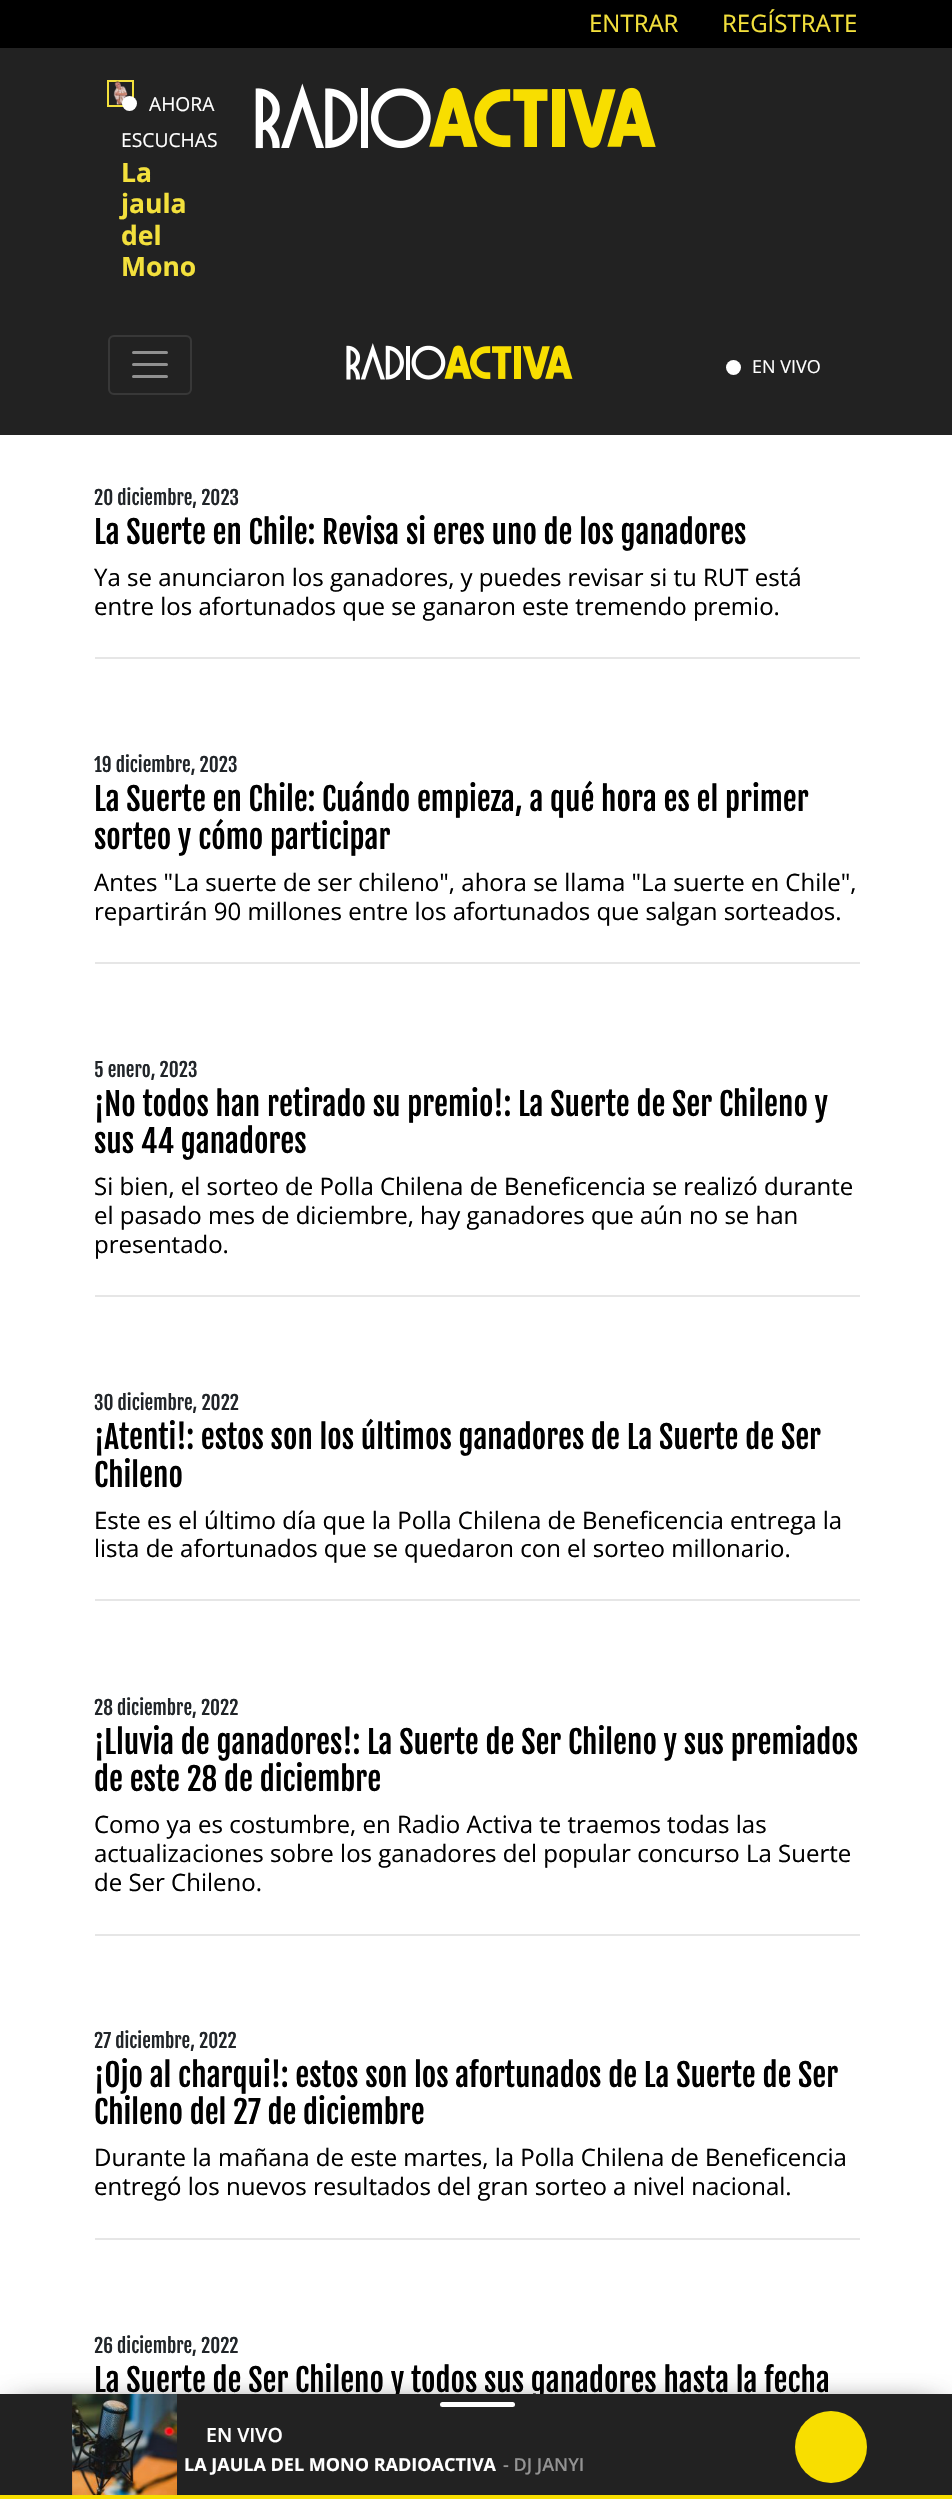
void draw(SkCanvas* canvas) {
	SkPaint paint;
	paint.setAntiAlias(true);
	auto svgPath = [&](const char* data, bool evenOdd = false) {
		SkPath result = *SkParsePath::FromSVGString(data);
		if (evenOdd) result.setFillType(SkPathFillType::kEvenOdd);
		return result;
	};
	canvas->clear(0xffffffff);
	paint.setColor(0xff222222);
	canvas->drawRect(SkRect::MakeXYWH(0, 48, 952, 387), paint);
	paint.setColor(0xff000000);
	canvas->drawRect(SkRect::MakeXYWH(0, 0, 952, 48), paint);
	SkFont f1(fontMgr->matchFamilyStyle("Open Sans", SkFontStyle::Normal()), 24);
	f1.setSubpixel(true);
	paint.setColor(0xfff3e03c);
	canvas->drawString("ENTRAR", 589, 32, f1, paint);
	canvas->drawString("REGÍSTRATE", 722, 32, f1, paint);
	paint.setStroke(true);
	paint.setStrokeWidth(2);
	canvas->drawRect(SkRect::MakeXYWH(108, 81, 25, 25), paint);
	canvas->drawImageRect(SkImages::DeferredFromEncodedData(SkData::MakeFromFileName("img1.png")), SkRect::MakeXYWH(113, 80, 15, 25), SkSamplingOptions());
	paint.setStroke(false);
	paint.setColor(0xffffffff);
	canvas->drawCircle(129.5, 103.5, 7.5, paint);
	SkFont f2(fontMgr->matchFamilyStyle("Open Sans", SkFontStyle::Normal()), 19.25);
	f2.setSubpixel(true);
	canvas->drawString("AHORA", 149, 111, f2, paint);
	canvas->drawString("ESCUCHAS", 121, 147, f2, paint);
	SkFont f3(fontMgr->matchFamilyStyle("Open Sans", SkFontStyle::Bold()), 26.5);
	f3.setSubpixel(true);
	paint.setColor(0xfff3e03c);
	canvas->drawString("La", 121, 182, f3, paint);
	canvas->drawString("jaula", 121, 213, f3, paint);
	canvas->drawString("del", 121, 245, f3, paint);
	canvas->drawString("Mono", 121, 276, f3, paint);
	canvas->drawImageRect(SkImages::DeferredFromEncodedData(SkData::MakeFromFileName("img2.png")), SkRect::MakeXYWH(255, 83, 401, 66), SkSamplingOptions());
	paint.setStroke(true);
	paint.setColor(0xff383838);
	canvas->drawRoundRect(SkRect::MakeXYWH(109, 336, 82, 58), 5, 5, paint);
	paint.setStrokeWidth(3);
	paint.setStrokeCap(SkPaint::kRound_Cap);
	paint.setColor(0xff919191);
	canvas->drawPath(svgPath("M133.5 352.5H166.5M133.5 364.5H166.5M133.5 376.5H166.5"), paint);
	canvas->drawImageRect(SkImages::DeferredFromEncodedData(SkData::MakeFromFileName("img3.png")), SkRect::MakeXYWH(346, 343, 227, 37), SkSamplingOptions());
	paint.setStroke(false);
	paint.setColor(0xffffffff);
	canvas->drawCircle(733.5, 367.5, 7.5, paint);
	SkFont f4(fontMgr->matchFamilyStyle("Open Sans", SkFontStyle::Normal()), 18);
	f4.setSubpixel(true);
	canvas->drawString("EN VIVO", 752, 373, f4, paint);
	SkFont f5(fontMgr->matchFamilyStyle("Fjalla One", SkFontStyle::Normal()), 19.25);
	f5.setSubpixel(true);
	paint.setColor(0xff212529);
	canvas->drawString("20 diciembre, 2023", 94, 505, f5, paint);
	SkFont f6(fontMgr->matchFamilyStyle("Fjalla One", SkFontStyle::Normal()), 31.2);
	f6.setSubpixel(true);
	paint.setColor(0xff000000);
	canvas->drawString("La Suerte en Chile: Revisa si eres uno de los ganadores", 94, 544, f6, paint);
	canvas->drawString("Ya se anunciaron los ganadores, y puedes revisar si tu RUT está", 94, 586, f1, paint);
	canvas->drawString("entre los afortunados que se ganaron este tremendo premio.", 94, 615, f1, paint);
	paint.setColor(0xffe6e6e6);
	canvas->drawRect(SkRect::MakeXYWH(95, 657, 765, 2), paint);
	paint.setColor(0xff212529);
	canvas->drawString("19 diciembre, 2023", 94, 772, f5, paint);
	paint.setColor(0xff000000);
	canvas->drawString("La Suerte en Chile: Cuándo empieza, a qué hora es el primer", 94, 811, f6, paint);
	canvas->drawString("sorteo y cómo participar", 94, 849, f6, paint);
	canvas->drawString("Antes \"La suerte de ser chileno\", ahora se llama \"La suerte en Chile\",", 94, 891, f1, paint);
	canvas->drawString("repartirán 90 millones entre los afortunados que salgan sorteados.", 94, 920, f1, paint);
	paint.setColor(0xffe6e6e6);
	canvas->drawRect(SkRect::MakeXYWH(95, 962, 765, 2), paint);
	paint.setColor(0xff212529);
	canvas->drawString("5 enero, 2023", 94, 1077, f5, paint);
	paint.setColor(0xff000000);
	canvas->drawString("¡No todos han retirado su premio!: La Suerte de Ser Chileno y", 94, 1116, f6, paint);
	canvas->drawString("sus 44 ganadores", 94, 1153, f6, paint);
	canvas->drawString("Si bien, el sorteo de Polla Chilena de Beneficencia se realizó durante", 94, 1195, f1, paint);
	canvas->drawString("el pasado mes de diciembre, hay ganadores que aún no se han", 94, 1224, f1, paint);
	canvas->drawString("presentado.", 94, 1253, f1, paint);
	paint.setColor(0xffe6e6e6);
	canvas->drawRect(SkRect::MakeXYWH(95, 1295, 765, 2), paint);
	paint.setColor(0xff212529);
	canvas->drawString("30 diciembre, 2022", 94, 1410, f5, paint);
	paint.setColor(0xff000000);
	canvas->drawString("¡Atenti!: estos son los últimos ganadores de La Suerte de Ser", 94, 1449, f6, paint);
	canvas->drawString("Chileno", 94, 1487, f6, paint);
	canvas->drawString("Este es el último día que la Polla Chilena de Beneficencia entrega la", 94, 1529, f1, paint);
	canvas->drawString("lista de afortunados que se quedaron con el sorteo millonario.", 94, 1557, f1, paint);
	paint.setColor(0xffe6e6e6);
	canvas->drawRect(SkRect::MakeXYWH(95, 1599, 765, 2), paint);
	paint.setColor(0xff212529);
	canvas->drawString("28 diciembre, 2022", 94, 1715, f5, paint);
	paint.setColor(0xff000000);
	canvas->drawString("¡Lluvia de ganadores!: La Suerte de Ser Chileno y sus premiados", 94, 1754, f6, paint);
	canvas->drawString("de este 28 de diciembre", 94, 1791, f6, paint);
	canvas->drawString("Como ya es costumbre, en Radio Activa te traemos todas las", 94, 1833, f1, paint);
	canvas->drawString("actualizaciones sobre los ganadores del popular concurso La Suerte", 94, 1862, f1, paint);
	canvas->drawString("de Ser Chileno.", 94, 1891, f1, paint);
	paint.setColor(0xffe6e6e6);
	canvas->drawRect(SkRect::MakeXYWH(95, 1934, 765, 2), paint);
	paint.setColor(0xff212529);
	canvas->drawString("27 diciembre, 2022", 94, 2048, f5, paint);
	paint.setColor(0xff000000);
	canvas->drawString("¡Ojo al charqui!: estos son los afortunados de La Suerte de Ser", 94, 2087, f6, paint);
	canvas->drawString("Chileno del 27 de diciembre", 94, 2124, f6, paint);
	canvas->drawString("Durante la mañana de este martes, la Polla Chilena de Beneficencia", 94, 2166, f1, paint);
	canvas->drawString("entregó los nuevos resultados del gran sorteo a nivel nacional.", 94, 2195, f1, paint);
	paint.setColor(0xffe6e6e6);
	canvas->drawRect(SkRect::MakeXYWH(95, 2238, 765, 2), paint);
	paint.setColor(0xff212529);
	canvas->drawString("26 diciembre, 2022", 94, 2353, f5, paint);
	paint.setColor(0xff000000);
	canvas->drawString("La Suerte de Ser Chileno y todos sus ganadores hasta la fecha", 94, 2392, f6, paint);
	paint.setColor(0x80000000);
	paint.setMaskFilter(SkMaskFilter::MakeBlur(kNormal_SkBlurStyle, 15));
	canvas->drawRect(SkRect::MakeXYWH(26, 2409, 922, 75), paint);
	paint.setMaskFilter(nullptr);
	paint.setMaskFilter(SkMaskFilter::MakeBlur(kNormal_SkBlurStyle, 15));
	canvas->drawRect(SkRect::MakeXYWH(5, 2409, 922, 75), paint);
	paint.setMaskFilter(nullptr);
	paint.setColor(0xff222222);
	canvas->drawRect(SkRect::MakeXYWH(0, 2394, 952, 101), paint);
	paint.setColor(0xffffffff);
	canvas->drawRoundRect(SkRect::MakeXYWH(440, 2402, 75, 5), 2.5, 2.5, paint);
	canvas->drawImageRect(SkImages::DeferredFromEncodedData(SkData::MakeFromFileName("img4.png")), SkRect::MakeXYWH(72, 2394, 105, 101), SkSamplingOptions());
	SkFont f7(fontMgr->matchFamilyStyle("Open Sans", SkFontStyle(600, SkFontStyle::kNormal_Width, SkFontStyle::kUpright_Slant)), 19.5);
	f7.setSubpixel(true);
	canvas->drawString("EN VIVO", 206, 2442, f7, paint);
	SkFont f8(fontMgr->matchFamilyStyle("Open Sans", SkFontStyle::Bold()), 18);
	f8.setSubpixel(true);
	canvas->drawString("LA JAULA DEL MONO RADIOACTIVA", 184, 2471, f8, paint);
	SkFont f9(fontMgr->matchFamilyStyle("Open Sans", SkFontStyle(600, SkFontStyle::kNormal_Width, SkFontStyle::kUpright_Slant)), 18);
	f9.setSubpixel(true);
	paint.setColor(0xff939393);
	canvas->drawString("- DJ JANYI", 503, 2471, f9, paint);
	paint.setColor(0xfff8de00);
	canvas->drawCircle(831, 2447, 36, paint);
	canvas->drawRect(SkRect::MakeXYWH(0, 2495, 952, 4), paint);
}
